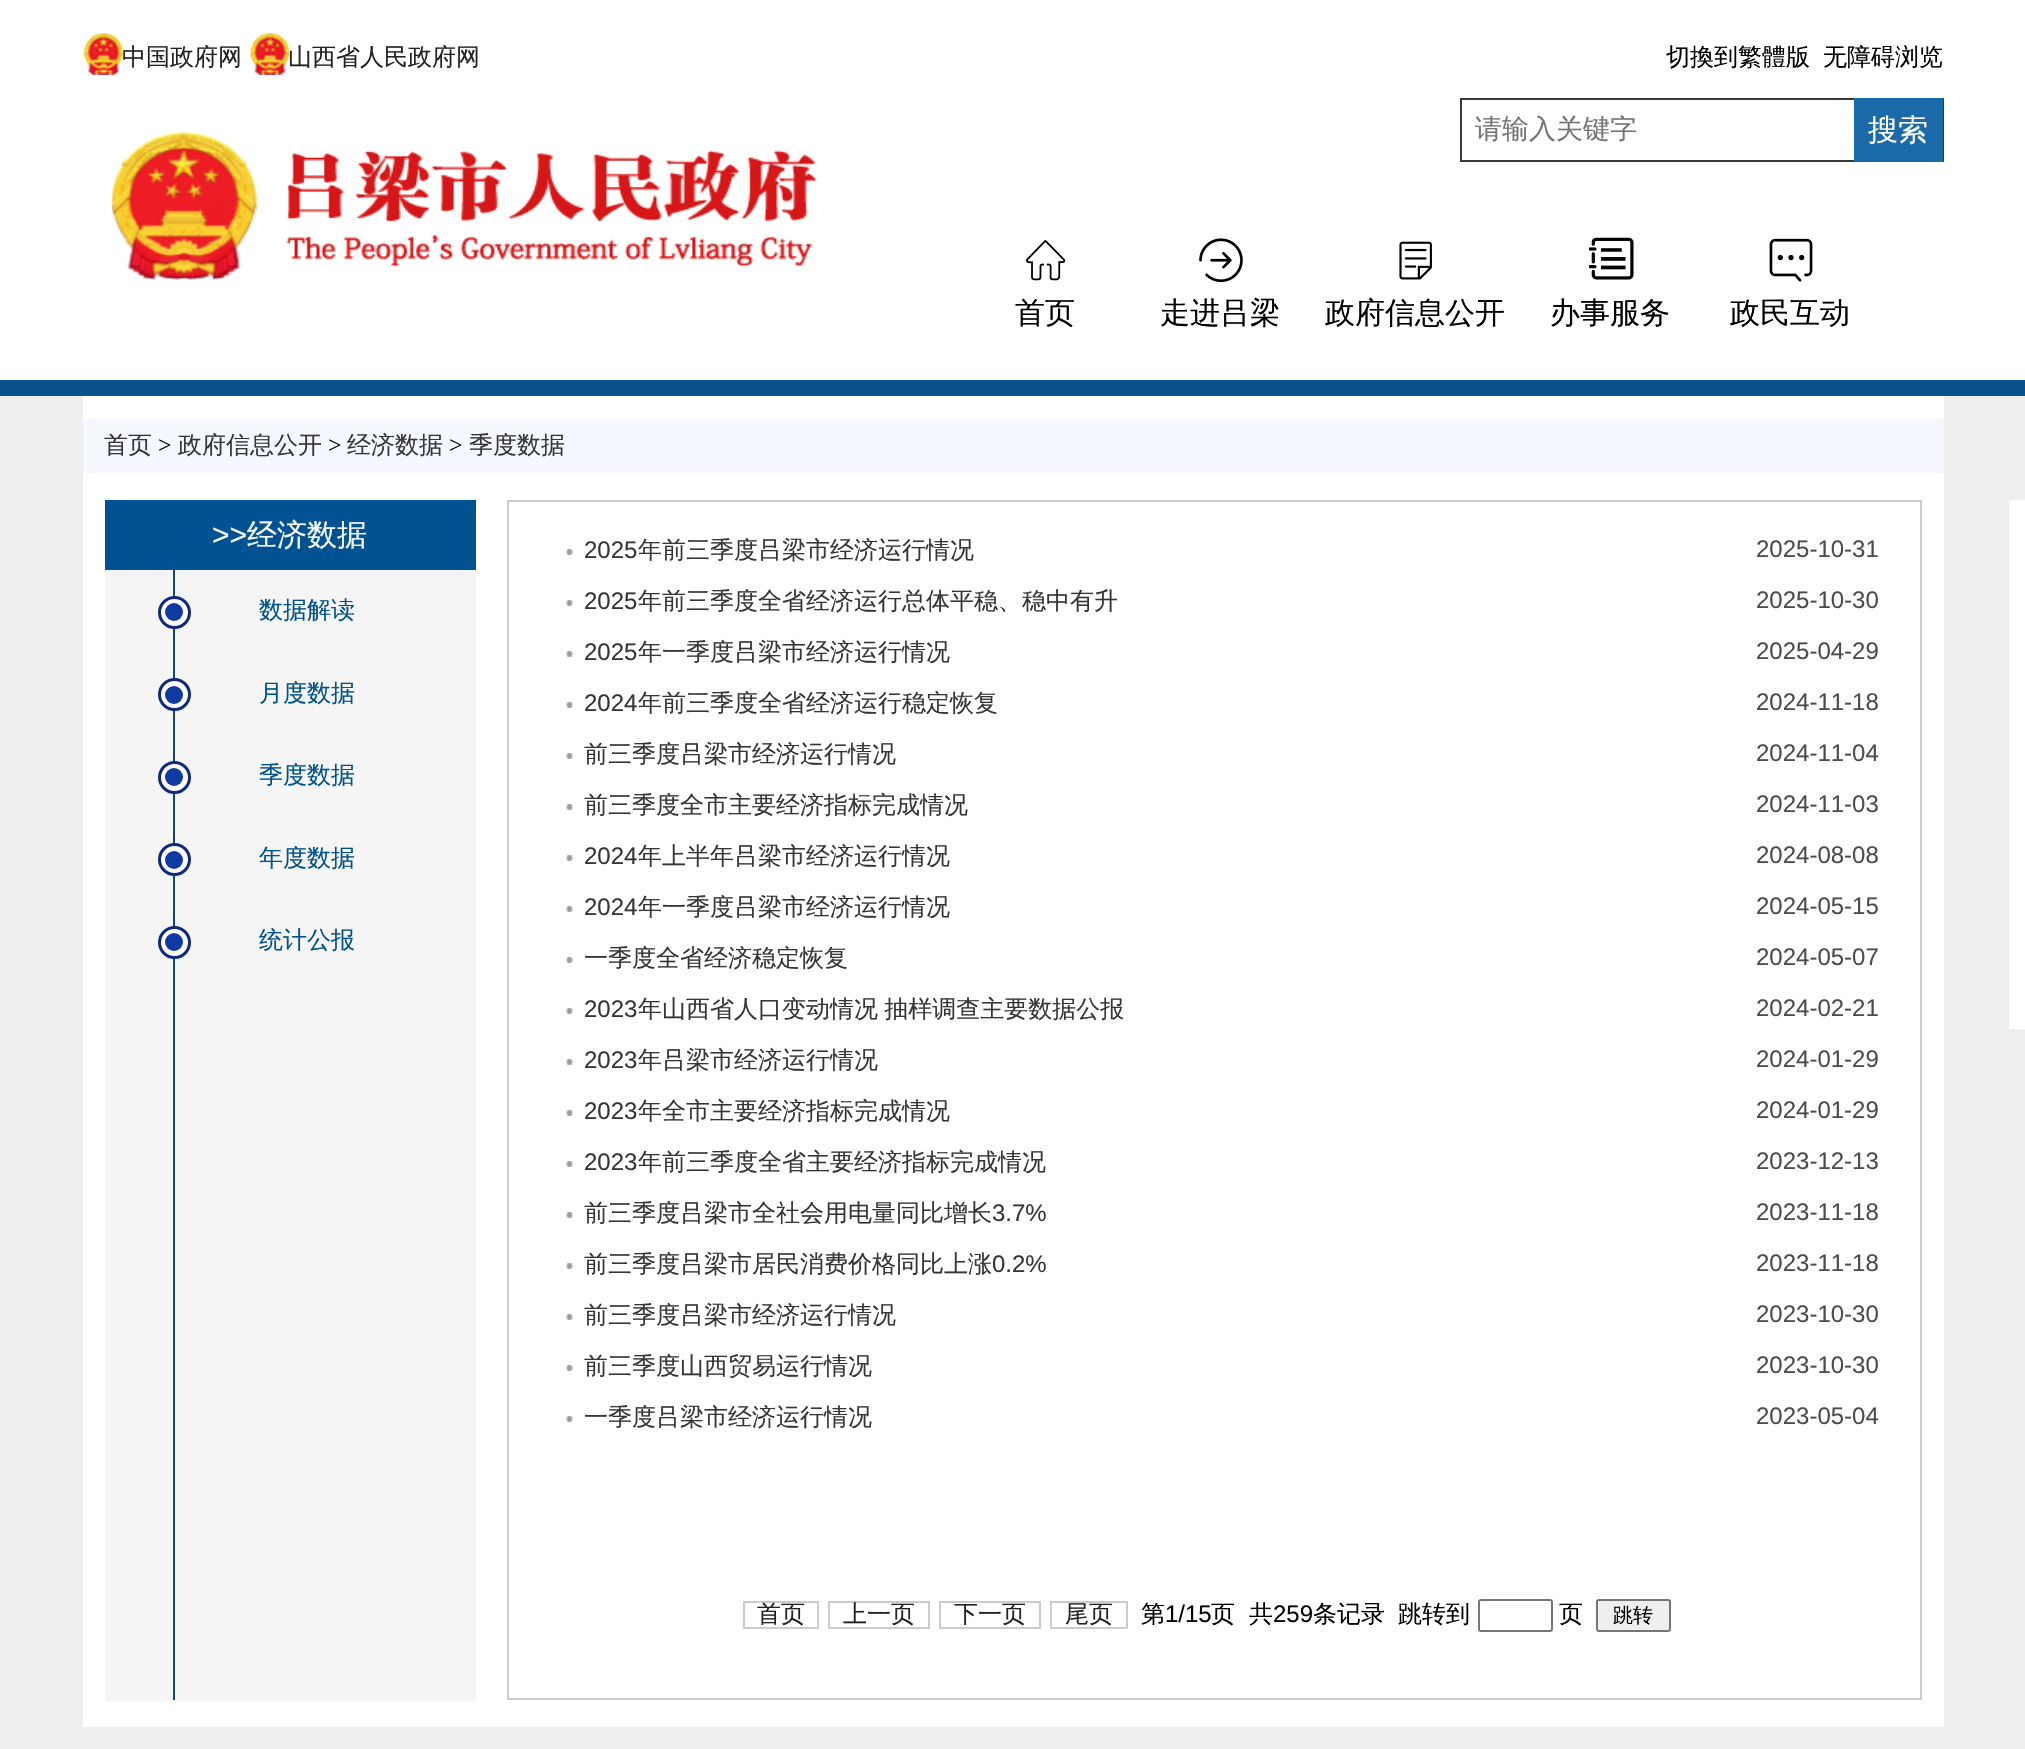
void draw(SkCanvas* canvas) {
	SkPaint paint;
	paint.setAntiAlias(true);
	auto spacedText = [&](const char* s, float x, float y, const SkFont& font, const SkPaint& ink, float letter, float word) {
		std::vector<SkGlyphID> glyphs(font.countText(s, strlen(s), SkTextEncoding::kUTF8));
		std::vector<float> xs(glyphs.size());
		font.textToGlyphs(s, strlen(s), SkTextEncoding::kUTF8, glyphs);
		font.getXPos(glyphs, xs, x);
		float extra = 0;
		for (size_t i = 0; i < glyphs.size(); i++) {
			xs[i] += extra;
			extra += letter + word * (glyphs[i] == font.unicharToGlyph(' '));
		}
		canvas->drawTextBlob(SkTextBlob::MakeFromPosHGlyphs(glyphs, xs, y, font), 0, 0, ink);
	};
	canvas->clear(0xffffffff);
	SkFont f1(fontMgr->matchFamilyStyle("WenQuanYi Zen Hei", SkFontStyle(500, SkFontStyle::kNormal_Width, SkFontStyle::kUpright_Slant)), 24);
	f1.setSubpixel(true);
	paint.setColor(0xff222222);
	canvas->drawString("中国政府网", 122, 65, f1, paint);
	canvas->drawImageRect(SkImages::DeferredFromEncodedData(SkData::MakeFromFileName("img1.png")), SkRect::MakeXYWH(83, 33, 41, 42), SkSamplingOptions());
	canvas->drawImageRect(SkImages::DeferredFromEncodedData(SkData::MakeFromFileName("img2.png")), SkRect::MakeXYWH(250, 33, 40, 42), SkSamplingOptions());
	canvas->drawString("山西省人民政府网", 288, 65, f1, paint);
	paint.setColor(0xff000000);
	canvas->drawString("切換到繁體版", 1666, 65, f1, paint);
	canvas->drawString("无障碍浏览", 1823, 65, f1, paint);
	canvas->drawImageRect(SkImages::DeferredFromEncodedData(SkData::MakeFromFileName("img3.png")), SkRect::MakeXYWH(111, 131, 705, 149), SkSamplingOptions());
	paint.setStroke(true);
	paint.setStrokeWidth(2);
	paint.setColor(0xff3c3737);
	canvas->drawRect(SkRect::MakeXYWH(1461, 99, 482, 62), paint);
	SkFont f2(fontMgr->matchFamilyStyle("WenQuanYi Zen Hei", SkFontStyle(500, SkFontStyle::kNormal_Width, SkFontStyle::kUpright_Slant)), 27);
	f2.setSubpixel(true);
	paint.setStroke(false);
	paint.setColor(0xff757575);
	canvas->drawString("请输入关键字", 1475, 138, f2, paint);
	paint.setColor(0xff1a6aa9);
	canvas->drawRect(SkRect::MakeXYWH(1854, 98, 89, 64), paint);
	SkFont f3(fontMgr->matchFamilyStyle("WenQuanYi Zen Hei", SkFontStyle(500, SkFontStyle::kNormal_Width, SkFontStyle::kUpright_Slant)), 30);
	f3.setSubpixel(true);
	paint.setColor(0xffffffff);
	canvas->drawString("搜索", 1868, 140, f3, paint);
	canvas->drawImageRect(SkImages::DeferredFromEncodedData(SkData::MakeFromFileName("img4.png")), SkRect::MakeXYWH(1025, 240, 41, 41), SkSamplingOptions());
	paint.setColor(0xff000000);
	canvas->drawString("首页", 1015, 323, f3, paint);
	canvas->drawImageRect(SkImages::DeferredFromEncodedData(SkData::MakeFromFileName("img5.png")), SkRect::MakeXYWH(1199, 238, 44, 45), SkSamplingOptions());
	canvas->drawString("走进吕梁", 1160, 323, f3, paint);
	canvas->drawImageRect(SkImages::DeferredFromEncodedData(SkData::MakeFromFileName("img6.png")), SkRect::MakeXYWH(1399, 241, 33, 39), SkSamplingOptions());
	canvas->drawString("政府信息公开", 1325, 323, f3, paint);
	canvas->drawImageRect(SkImages::DeferredFromEncodedData(SkData::MakeFromFileName("img7.png")), SkRect::MakeXYWH(1589, 237, 45, 43), SkSamplingOptions());
	canvas->drawString("办事服务", 1550, 323, f3, paint);
	canvas->drawImageRect(SkImages::DeferredFromEncodedData(SkData::MakeFromFileName("img8.png")), SkRect::MakeXYWH(1769, 238, 44, 44), SkSamplingOptions());
	canvas->drawString("政民互动", 1730, 323, f3, paint);
	paint.setColor(0xff07528b);
	canvas->drawRect(SkRect::MakeXYWH(0, 380, 2025, 16), paint);
	paint.setColor(0xffeeeeee);
	canvas->drawRect(SkRect::MakeXYWH(0, 396, 2025, 1353), paint);
	paint.setColor(0xffffffff);
	canvas->drawRect(SkRect::MakeXYWH(83, 396, 1861, 1331), paint);
	paint.setColor(0xfff5f8ff);
	canvas->drawRect(SkRect::MakeXYWH(83, 419, 1861, 54), paint);
	paint.setColor(0xff363636);
	canvas->drawString("首页", 104, 453, f1, paint);
	SkFont f4(fontMgr->matchFamilyStyle("Liberation Serif", SkFontStyle::Normal()), 24);
	f4.setSubpixel(true);
	paint.setColor(0xff000000);
	canvas->drawString(">", 158, 453, f4, paint);
	paint.setColor(0xff363636);
	canvas->drawString("政府信息公开", 178, 453, f1, paint);
	paint.setColor(0xff000000);
	canvas->drawString(">", 328, 453, f4, paint);
	paint.setColor(0xff363636);
	canvas->drawString("经济数据", 347, 453, f1, paint);
	paint.setColor(0xff000000);
	canvas->drawString(">", 449, 453, f4, paint);
	paint.setColor(0xff363636);
	canvas->drawString("季度数据", 469, 453, f1, paint);
	paint.setColor(0xff015293);
	canvas->drawRect(SkRect::MakeXYWH(105, 500, 371, 70), paint);
	SkFont f5(fontMgr->matchFamilyStyle("Liberation Sans", SkFontStyle::Normal()), 30);
	f5.setSubpixel(true);
	paint.setColor(0xffffffff);
	canvas->drawString(">>", 212, 545, f5, paint);
	canvas->drawString("经济数据", 247, 545, f3, paint);
	paint.setColor(0xfff5f5f5);
	canvas->drawRect(SkRect::MakeXYWH(105, 570, 371, 1131), paint);
	paint.setColor(0xff0e4874);
	canvas->drawRect(SkRect::MakeXYWH(173, 570, 2, 1130), paint);
	paint.setColor(0xffffffff);
	canvas->drawCircle(174.5, 612.5, 15, paint);
	paint.setStroke(true);
	paint.setStrokeWidth(3);
	paint.setColor(0xff102980);
	canvas->drawCircle(174.5, 612.5, 15, paint);
	paint.setStroke(false);
	paint.setColor(0xff00528c);
	canvas->drawString("数据解读", 259, 618, f1, paint);
	paint.setColor(0xff0f3aa2);
	canvas->drawCircle(174, 612, 9, paint);
	paint.setColor(0xffffffff);
	canvas->drawCircle(174.5, 694.5, 15, paint);
	paint.setStroke(true);
	paint.setColor(0xff102980);
	canvas->drawCircle(174.5, 694.5, 15, paint);
	paint.setStroke(false);
	paint.setColor(0xff00528c);
	canvas->drawString("月度数据", 259, 701, f1, paint);
	paint.setColor(0xff0f3aa2);
	canvas->drawCircle(174, 695, 9, paint);
	paint.setColor(0xffffffff);
	canvas->drawCircle(174.5, 777.5, 15, paint);
	paint.setStroke(true);
	paint.setColor(0xff102980);
	canvas->drawCircle(174.5, 777.5, 15, paint);
	paint.setStroke(false);
	paint.setColor(0xff00528c);
	canvas->drawString("季度数据", 259, 783, f1, paint);
	paint.setColor(0xff0f3aa2);
	canvas->drawCircle(174, 777, 9, paint);
	paint.setColor(0xffffffff);
	canvas->drawCircle(174.5, 859.5, 15, paint);
	paint.setStroke(true);
	paint.setColor(0xff102980);
	canvas->drawCircle(174.5, 859.5, 15, paint);
	paint.setStroke(false);
	paint.setColor(0xff00528c);
	canvas->drawString("年度数据", 259, 866, f1, paint);
	paint.setColor(0xff0f3aa2);
	canvas->drawCircle(174, 860, 9, paint);
	paint.setColor(0xffffffff);
	canvas->drawCircle(174.5, 942.5, 15, paint);
	paint.setStroke(true);
	paint.setColor(0xff102980);
	canvas->drawCircle(174.5, 942.5, 15, paint);
	paint.setStroke(false);
	paint.setColor(0xff00528c);
	canvas->drawString("统计公报", 259, 948, f1, paint);
	paint.setColor(0xff0f3aa2);
	canvas->drawCircle(174, 942, 9, paint);
	paint.setStroke(true);
	paint.setStrokeWidth(2);
	paint.setColor(0xffcccccc);
	canvas->drawRect(SkRect::MakeXYWH(508, 501, 1413, 1198), paint);
	canvas->drawImageRect(SkImages::DeferredFromEncodedData(SkData::MakeFromFileName("img9.png")), SkRect::MakeXYWH(565, 549, 8, 6), SkSamplingOptions());
	SkFont f6(fontMgr->matchFamilyStyle("Liberation Sans", SkFontStyle::Normal()), 24);
	f6.setSubpixel(true);
	paint.setStroke(false);
	paint.setColor(0xff363636);
	canvas->drawString("2025", 584, 558, f6, paint);
	canvas->drawString("年前三季度吕梁市经济运行情况", 638, 558, f1, paint);
	paint.setColor(0xff504b4b);
	canvas->drawString("2025-10-31", 1756, 557, f6, paint);
	canvas->drawImageRect(SkImages::DeferredFromEncodedData(SkData::MakeFromFileName("img9.png")), SkRect::MakeXYWH(565, 600, 8, 6), SkSamplingOptions());
	paint.setColor(0xff363636);
	canvas->drawString("2025", 584, 609, f6, paint);
	canvas->drawString("年前三季度全省经济运行总体平稳、稳中有升", 638, 609, f1, paint);
	paint.setColor(0xff504b4b);
	canvas->drawString("2025-10-30", 1756, 608, f6, paint);
	canvas->drawImageRect(SkImages::DeferredFromEncodedData(SkData::MakeFromFileName("img9.png")), SkRect::MakeXYWH(565, 651, 8, 6), SkSamplingOptions());
	paint.setColor(0xff363636);
	canvas->drawString("2025", 584, 660, f6, paint);
	canvas->drawString("年一季度吕梁市经济运行情况", 638, 660, f1, paint);
	paint.setColor(0xff504b4b);
	canvas->drawString("2025-04-29", 1756, 659, f6, paint);
	canvas->drawImageRect(SkImages::DeferredFromEncodedData(SkData::MakeFromFileName("img9.png")), SkRect::MakeXYWH(565, 702, 8, 6), SkSamplingOptions());
	paint.setColor(0xff363636);
	canvas->drawString("2024", 584, 711, f6, paint);
	canvas->drawString("年前三季度全省经济运行稳定恢复", 638, 711, f1, paint);
	paint.setColor(0xff504b4b);
	canvas->drawString("2024-11-18", 1756, 710, f6, paint);
	canvas->drawImageRect(SkImages::DeferredFromEncodedData(SkData::MakeFromFileName("img9.png")), SkRect::MakeXYWH(565, 753, 8, 6), SkSamplingOptions());
	paint.setColor(0xff363636);
	canvas->drawString("前三季度吕梁市经济运行情况", 584, 762, f1, paint);
	paint.setColor(0xff504b4b);
	canvas->drawString("2024-11-04", 1756, 761, f6, paint);
	canvas->drawImageRect(SkImages::DeferredFromEncodedData(SkData::MakeFromFileName("img9.png")), SkRect::MakeXYWH(565, 804, 8, 6), SkSamplingOptions());
	paint.setColor(0xff363636);
	canvas->drawString("前三季度全市主要经济指标完成情况", 584, 813, f1, paint);
	paint.setColor(0xff504b4b);
	canvas->drawString("2024-11-03", 1756, 812, f6, paint);
	canvas->drawImageRect(SkImages::DeferredFromEncodedData(SkData::MakeFromFileName("img9.png")), SkRect::MakeXYWH(565, 855, 8, 6), SkSamplingOptions());
	paint.setColor(0xff363636);
	canvas->drawString("2024", 584, 864, f6, paint);
	canvas->drawString("年上半年吕梁市经济运行情况", 638, 864, f1, paint);
	paint.setColor(0xff504b4b);
	canvas->drawString("2024-08-08", 1756, 863, f6, paint);
	canvas->drawImageRect(SkImages::DeferredFromEncodedData(SkData::MakeFromFileName("img9.png")), SkRect::MakeXYWH(565, 906, 8, 6), SkSamplingOptions());
	paint.setColor(0xff363636);
	canvas->drawString("2024", 584, 915, f6, paint);
	canvas->drawString("年一季度吕梁市经济运行情况", 638, 915, f1, paint);
	paint.setColor(0xff504b4b);
	canvas->drawString("2024-05-15", 1756, 914, f6, paint);
	canvas->drawImageRect(SkImages::DeferredFromEncodedData(SkData::MakeFromFileName("img9.png")), SkRect::MakeXYWH(565, 957, 8, 6), SkSamplingOptions());
	paint.setColor(0xff363636);
	canvas->drawString("一季度全省经济稳定恢复", 584, 966, f1, paint);
	paint.setColor(0xff504b4b);
	canvas->drawString("2024-05-07", 1756, 965, f6, paint);
	canvas->drawImageRect(SkImages::DeferredFromEncodedData(SkData::MakeFromFileName("img9.png")), SkRect::MakeXYWH(565, 1008, 8, 6), SkSamplingOptions());
	paint.setColor(0xff363636);
	canvas->drawString("2023", 584, 1017, f6, paint);
	spacedText("年山西省人口变动情况 抽样调查主要数据公报", 638, 1017, f1, paint, 0, -1);
	paint.setColor(0xff504b4b);
	canvas->drawString("2024-02-21", 1756, 1016, f6, paint);
	canvas->drawImageRect(SkImages::DeferredFromEncodedData(SkData::MakeFromFileName("img9.png")), SkRect::MakeXYWH(565, 1059, 8, 6), SkSamplingOptions());
	paint.setColor(0xff363636);
	canvas->drawString("2023", 584, 1068, f6, paint);
	canvas->drawString("年吕梁市经济运行情况", 638, 1068, f1, paint);
	paint.setColor(0xff504b4b);
	canvas->drawString("2024-01-29", 1756, 1067, f6, paint);
	canvas->drawImageRect(SkImages::DeferredFromEncodedData(SkData::MakeFromFileName("img9.png")), SkRect::MakeXYWH(565, 1110, 8, 6), SkSamplingOptions());
	paint.setColor(0xff363636);
	canvas->drawString("2023", 584, 1119, f6, paint);
	canvas->drawString("年全市主要经济指标完成情况", 638, 1119, f1, paint);
	paint.setColor(0xff504b4b);
	canvas->drawString("2024-01-29", 1756, 1118, f6, paint);
	canvas->drawImageRect(SkImages::DeferredFromEncodedData(SkData::MakeFromFileName("img9.png")), SkRect::MakeXYWH(565, 1161, 8, 6), SkSamplingOptions());
	paint.setColor(0xff363636);
	canvas->drawString("2023", 584, 1170, f6, paint);
	canvas->drawString("年前三季度全省主要经济指标完成情况", 638, 1170, f1, paint);
	paint.setColor(0xff504b4b);
	canvas->drawString("2023-12-13", 1756, 1169, f6, paint);
	canvas->drawImageRect(SkImages::DeferredFromEncodedData(SkData::MakeFromFileName("img9.png")), SkRect::MakeXYWH(565, 1212, 8, 6), SkSamplingOptions());
	paint.setColor(0xff363636);
	canvas->drawString("前三季度吕梁市全社会用电量同比增长", 584, 1221, f1, paint);
	canvas->drawString("3.7%", 992, 1221, f6, paint);
	paint.setColor(0xff504b4b);
	canvas->drawString("2023-11-18", 1756, 1220, f6, paint);
	canvas->drawImageRect(SkImages::DeferredFromEncodedData(SkData::MakeFromFileName("img9.png")), SkRect::MakeXYWH(565, 1263, 8, 6), SkSamplingOptions());
	paint.setColor(0xff363636);
	canvas->drawString("前三季度吕梁市居民消费价格同比上涨", 584, 1272, f1, paint);
	canvas->drawString("0.2%", 992, 1272, f6, paint);
	paint.setColor(0xff504b4b);
	canvas->drawString("2023-11-18", 1756, 1271, f6, paint);
	canvas->drawImageRect(SkImages::DeferredFromEncodedData(SkData::MakeFromFileName("img9.png")), SkRect::MakeXYWH(565, 1314, 8, 6), SkSamplingOptions());
	paint.setColor(0xff363636);
	canvas->drawString("前三季度吕梁市经济运行情况", 584, 1323, f1, paint);
	paint.setColor(0xff504b4b);
	canvas->drawString("2023-10-30", 1756, 1322, f6, paint);
	canvas->drawImageRect(SkImages::DeferredFromEncodedData(SkData::MakeFromFileName("img9.png")), SkRect::MakeXYWH(565, 1365, 8, 6), SkSamplingOptions());
	paint.setColor(0xff363636);
	canvas->drawString("前三季度山西贸易运行情况", 584, 1374, f1, paint);
	paint.setColor(0xff504b4b);
	canvas->drawString("2023-10-30", 1756, 1373, f6, paint);
	canvas->drawImageRect(SkImages::DeferredFromEncodedData(SkData::MakeFromFileName("img9.png")), SkRect::MakeXYWH(565, 1416, 8, 6), SkSamplingOptions());
	paint.setColor(0xff363636);
	canvas->drawString("一季度吕梁市经济运行情况", 584, 1425, f1, paint);
	paint.setColor(0xff504b4b);
	canvas->drawString("2023-05-04", 1756, 1424, f6, paint);
	paint.setStroke(true);
	paint.setColor(0xffcccccc);
	canvas->drawRect(SkRect::MakeXYWH(744, 1602, 74, 26), paint);
	paint.setStroke(false);
	paint.setColor(0xff222222);
	canvas->drawString("首页", 757, 1622, f1, paint);
	paint.setStroke(true);
	paint.setColor(0xffcccccc);
	canvas->drawRect(SkRect::MakeXYWH(829, 1602, 100, 26), paint);
	paint.setStroke(false);
	paint.setColor(0xff222222);
	canvas->drawString("上一页", 843, 1622, f1, paint);
	paint.setStroke(true);
	paint.setColor(0xffcccccc);
	canvas->drawRect(SkRect::MakeXYWH(940, 1602, 100, 26), paint);
	paint.setStroke(false);
	paint.setColor(0xff222222);
	canvas->drawString("下一页", 954, 1622, f1, paint);
	paint.setStroke(true);
	paint.setColor(0xffcccccc);
	canvas->drawRect(SkRect::MakeXYWH(1051, 1602, 76, 26), paint);
	paint.setStroke(false);
	paint.setColor(0xff222222);
	canvas->drawString("尾页", 1065, 1622, f1, paint);
	paint.setColor(0xff000000);
	canvas->drawString("第", 1141, 1622, f1, paint);
	canvas->drawString("1/15", 1165, 1622, f6, paint);
	canvas->drawString("页", 1211, 1622, f1, paint);
	canvas->drawString("共", 1249, 1622, f1, paint);
	canvas->drawString("259", 1273, 1622, f6, paint);
	canvas->drawString("条记录", 1313, 1622, f1, paint);
	canvas->drawString("跳转到", 1398, 1622, f1, paint);
	paint.setStroke(true);
	paint.setColor(0xff767676);
	canvas->drawRoundRect(SkRect::MakeXYWH(1479, 1600, 73, 31), 2, 2, paint);
	paint.setStroke(false);
	paint.setColor(0xff000000);
	canvas->drawString("页", 1559, 1622, f1, paint);
	paint.setColor(0xffefefef);
	canvas->drawRoundRect(SkRect::MakeXYWH(1597, 1600, 73, 31), 2, 2, paint);
	paint.setStroke(true);
	paint.setColor(0xff767676);
	canvas->drawRoundRect(SkRect::MakeXYWH(1597, 1600, 73, 31), 2, 2, paint);
	SkFont f7(fontMgr->matchFamilyStyle("WenQuanYi Zen Hei", SkFontStyle(500, SkFontStyle::kNormal_Width, SkFontStyle::kUpright_Slant)), 20);
	f7.setSubpixel(true);
	paint.setStroke(false);
	paint.setColor(0xff000000);
	canvas->drawString("跳转", 1613, 1622, f7, paint);
	paint.setColor(0xffffffff);
	canvas->drawRect(SkRect::MakeXYWH(2009, 500, 16, 529), paint);
}
